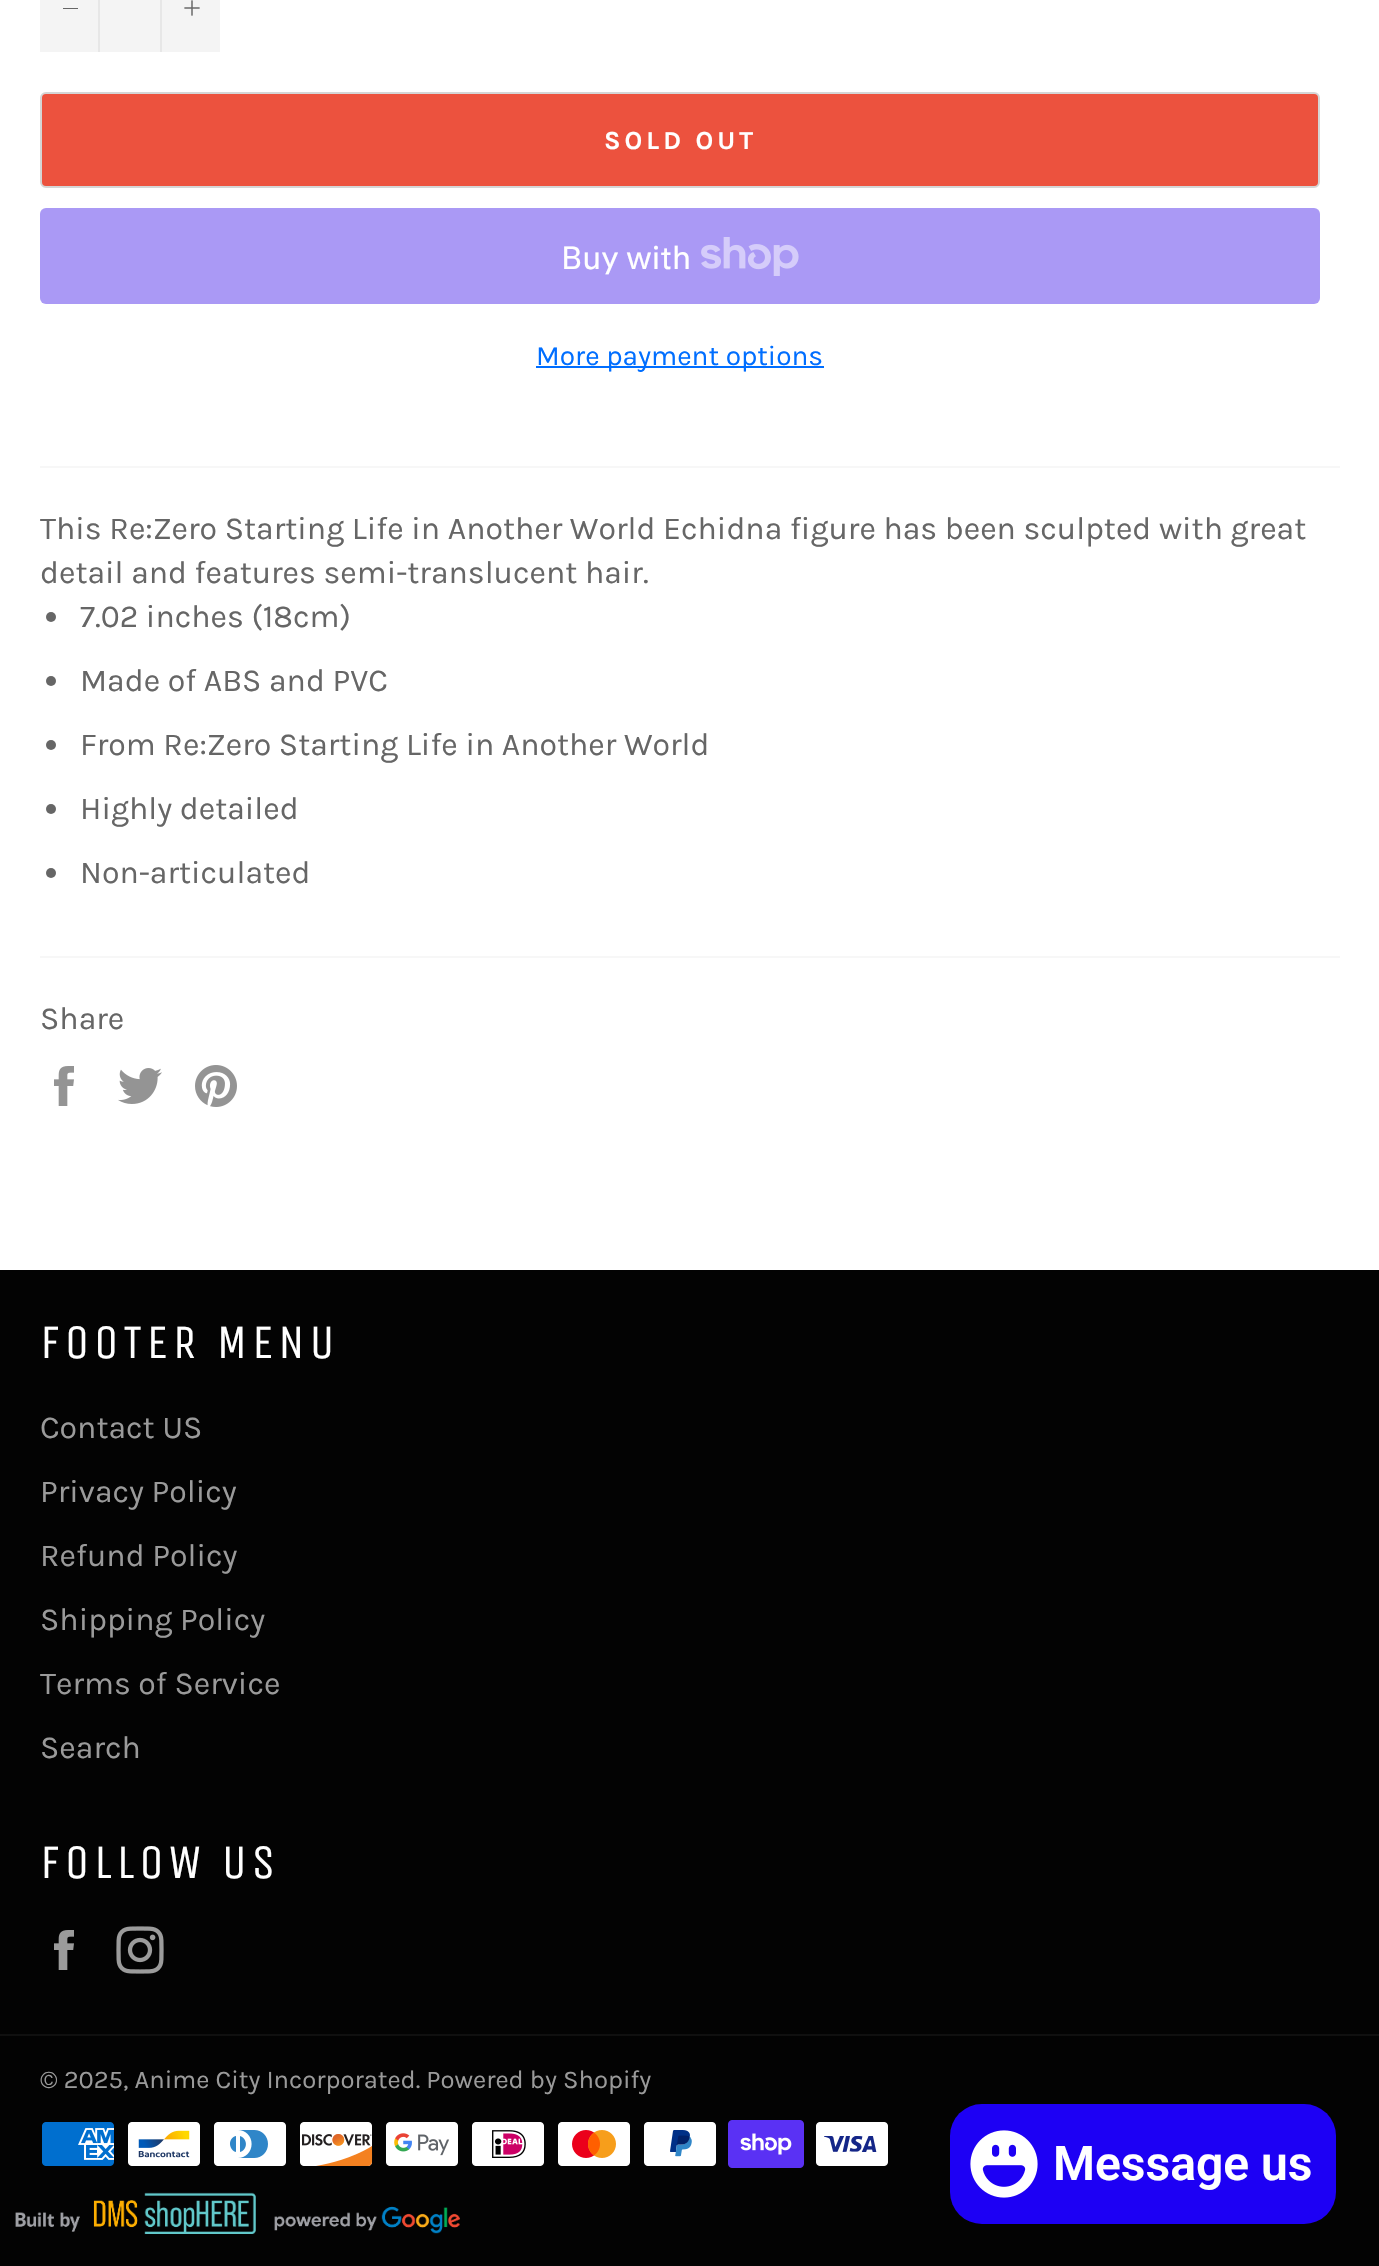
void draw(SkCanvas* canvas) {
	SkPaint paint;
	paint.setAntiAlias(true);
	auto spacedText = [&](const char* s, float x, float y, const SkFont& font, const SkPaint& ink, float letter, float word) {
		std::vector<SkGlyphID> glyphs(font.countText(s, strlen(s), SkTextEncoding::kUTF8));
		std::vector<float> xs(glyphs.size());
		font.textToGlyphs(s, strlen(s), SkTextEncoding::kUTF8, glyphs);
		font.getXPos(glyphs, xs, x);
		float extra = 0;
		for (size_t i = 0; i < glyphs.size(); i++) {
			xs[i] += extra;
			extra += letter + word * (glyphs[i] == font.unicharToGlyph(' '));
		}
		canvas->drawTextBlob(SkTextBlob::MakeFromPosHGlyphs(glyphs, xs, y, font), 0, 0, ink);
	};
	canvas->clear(0xffffffff);
	paint.setColor(0xfff4f4f4);
	canvas->drawRect(SkRect::MakeXYWH(40, 0, 180, 52), paint);
	paint.setColor(0xffe7e7e7);
	canvas->drawRect(SkRect::MakeXYWH(98, 0, 2, 52), paint);
	paint.setColor(0xff666666);
	canvas->drawRect(SkRect::MakeXYWH(63, 8, 15, 1), paint);
	paint.setColor(0xffe7e7e7);
	canvas->drawRect(SkRect::MakeXYWH(160, 0, 2, 52), paint);
	canvas->drawImageRect(SkImages::DeferredFromEncodedData(SkData::MakeFromFileName("img1.png")), SkRect::MakeXYWH(184, 0, 16, 16), SkSamplingOptions());
	paint.setColor(0xffec523e);
	canvas->drawRoundRect(SkRect::MakeXYWH(41, 93, 1278, 94), 5, 5, paint);
	paint.setStroke(true);
	paint.setStrokeWidth(2);
	paint.setColor(0xffd5d5d5);
	canvas->drawRoundRect(SkRect::MakeXYWH(41, 93, 1278, 94), 5, 5, paint);
	SkFont f1(fontMgr->matchFamilyStyle("Karla", SkFontStyle::Bold()), 26);
	f1.setSubpixel(true);
	paint.setStroke(false);
	paint.setColor(0xffffffff);
	spacedText("SOLD OUT", 604, 149, f1, paint, 4, 0);
	paint.setColor(0xffaa99f5);
	canvas->drawRoundRect(SkRect::MakeXYWH(40, 208, 1280, 96), 6, 6, paint);
	SkFont f2(fontMgr->matchFamilyStyle("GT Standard", SkFontStyle::Normal()), 32);
	f2.setSubpixel(true);
	paint.setColor(0xffffffff);
	canvas->drawString("Buy with", 561, 269, f2, paint);
	canvas->drawImageRect(SkImages::DeferredFromEncodedData(SkData::MakeFromFileName("img2.png")), SkRect::MakeXYWH(701, 237, 98, 39), SkSamplingOptions());
	paint.setColor(0xff006eff);
	canvas->drawRect(SkRect::MakeXYWH(536, 366, 288, 2), paint);
	SkFont f3(fontMgr->matchFamilyStyle("Karla", SkFontStyle::Normal()), 28);
	f3.setSubpixel(true);
	canvas->drawString("More payment options", 536, 365, f3, paint);
	paint.setColor(0xfff7f7f7);
	canvas->drawRect(SkRect::MakeXYWH(40, 466, 1300, 2), paint);
	SkFont f4(fontMgr->matchFamilyStyle("Karla", SkFontStyle::Normal()), 32);
	f4.setSubpixel(true);
	paint.setColor(0xff666666);
	canvas->drawString("This Re:Zero Starting Life in Another World Echidna figure has been sculpted with great", 40, 539, f4, paint);
	canvas->drawString("detail and features semi-translucent hair.", 40, 583, f4, paint);
	canvas->drawCircle(51, 617, 5, paint);
	canvas->drawString("7.02 inches (18cm)", 80, 627, f4, paint);
	canvas->drawCircle(51, 681, 5, paint);
	canvas->drawString("Made of ABS and PVC", 80, 691, f4, paint);
	canvas->drawCircle(51, 745, 5, paint);
	canvas->drawString("From Re:Zero Starting Life in Another World", 80, 755, f4, paint);
	canvas->drawCircle(51, 809, 5, paint);
	canvas->drawString("Highly detailed", 80, 819, f4, paint);
	canvas->drawCircle(51, 873, 5, paint);
	canvas->drawString("Non-articulated", 80, 883, f4, paint);
	paint.setColor(0xfff7f7f7);
	canvas->drawRect(SkRect::MakeXYWH(40, 956, 1300, 2), paint);
	paint.setColor(0xff666666);
	canvas->drawString("Share", 40, 1029, f4, paint);
	canvas->drawImageRect(SkImages::DeferredFromEncodedData(SkData::MakeFromFileName("img3.png")), SkRect::MakeXYWH(54, 1066, 20, 40), SkSamplingOptions());
	canvas->drawImageRect(SkImages::DeferredFromEncodedData(SkData::MakeFromFileName("img4.png")), SkRect::MakeXYWH(118, 1068, 44, 36), SkSamplingOptions());
	canvas->drawImageRect(SkImages::DeferredFromEncodedData(SkData::MakeFromFileName("img5.png")), SkRect::MakeXYWH(195, 1065, 42, 42), SkSamplingOptions());
	paint.setColor(0xff030303);
	canvas->drawRect(SkRect::MakeXYWH(0, 1270, 1379, 996), paint);
	SkFont f5(fontMgr->matchFamilyStyle("Unica One", SkFontStyle::Normal()), 48);
	f5.setSubpixel(true);
	paint.setColor(0xffffffff);
	spacedText("FOOTER MENU", 40, 1358, f5, paint, 4.75, 0);
	paint.setColor(0xff9a9a9a);
	canvas->drawString("Contact US", 40, 1438, f4, paint);
	canvas->drawString("Privacy Policy", 40, 1502, f4, paint);
	canvas->drawString("Refund Policy", 40, 1566, f4, paint);
	canvas->drawString("Shipping Policy", 40, 1630, f4, paint);
	canvas->drawString("Terms of Service", 40, 1694, f4, paint);
	canvas->drawString("Search", 40, 1758, f4, paint);
	paint.setColor(0xffffffff);
	spacedText("FOLLOW US", 40, 1878, f5, paint, 4.75, 0);
	canvas->drawImageRect(SkImages::DeferredFromEncodedData(SkData::MakeFromFileName("img6.png")), SkRect::MakeXYWH(54, 1930, 20, 40), SkSamplingOptions());
	canvas->drawImageRect(SkImages::DeferredFromEncodedData(SkData::MakeFromFileName("img7.png")), SkRect::MakeXYWH(116, 1926, 48, 48), SkSamplingOptions());
	paint.setColor(0xff101010);
	canvas->drawRect(SkRect::MakeXYWH(0, 2034, 1379, 2), paint);
	SkFont f6(fontMgr->matchFamilyStyle("Karla", SkFontStyle::Normal()), 25.6);
	f6.setSubpixel(true);
	paint.setColor(0xff9a9a9a);
	canvas->drawString("© 2025, Anime City Incorporated. Powered by Shopify", 40, 2088, f6, paint);
	canvas->drawImageRect(SkImages::DeferredFromEncodedData(SkData::MakeFromFileName("img8.png")), SkRect::MakeXYWH(42, 2122, 72, 44), SkSamplingOptions());
	canvas->drawImageRect(SkImages::DeferredFromEncodedData(SkData::MakeFromFileName("img9.png")), SkRect::MakeXYWH(128, 2122, 72, 44), SkSamplingOptions());
	canvas->drawImageRect(SkImages::DeferredFromEncodedData(SkData::MakeFromFileName("img10.png")), SkRect::MakeXYWH(214, 2122, 72, 44), SkSamplingOptions());
	canvas->drawImageRect(SkImages::DeferredFromEncodedData(SkData::MakeFromFileName("img11.png")), SkRect::MakeXYWH(300, 2122, 73, 44), SkSamplingOptions());
	canvas->drawImageRect(SkImages::DeferredFromEncodedData(SkData::MakeFromFileName("img12.png")), SkRect::MakeXYWH(386, 2122, 72, 44), SkSamplingOptions());
	canvas->drawImageRect(SkImages::DeferredFromEncodedData(SkData::MakeFromFileName("img13.png")), SkRect::MakeXYWH(472, 2122, 72, 44), SkSamplingOptions());
	canvas->drawImageRect(SkImages::DeferredFromEncodedData(SkData::MakeFromFileName("img14.png")), SkRect::MakeXYWH(558, 2122, 72, 44), SkSamplingOptions());
	canvas->drawImageRect(SkImages::DeferredFromEncodedData(SkData::MakeFromFileName("img15.png")), SkRect::MakeXYWH(644, 2122, 72, 44), SkSamplingOptions());
	canvas->drawImageRect(SkImages::DeferredFromEncodedData(SkData::MakeFromFileName("img16.png")), SkRect::MakeXYWH(728, 2120, 76, 48), SkSamplingOptions());
	canvas->drawImageRect(SkImages::DeferredFromEncodedData(SkData::MakeFromFileName("img17.png")), SkRect::MakeXYWH(816, 2122, 72, 44), SkSamplingOptions());
	canvas->drawImageRect(SkImages::DeferredFromEncodedData(SkData::MakeFromFileName("img18.png")), SkRect::MakeXYWH(15, 2192, 445, 42), SkSamplingOptions());
	paint.setColor(0xff1d00f4);
	canvas->drawRoundRect(SkRect::MakeXYWH(950, 2104, 386, 120), 32, 32, paint);
	canvas->drawImageRect(SkImages::DeferredFromEncodedData(SkData::MakeFromFileName("img19.png")), SkRect::MakeXYWH(970, 2130, 68, 68), SkSamplingOptions());
	SkFont f7(fontMgr->matchFamilyStyle("Roboto", SkFontStyle(600, SkFontStyle::kNormal_Width, SkFontStyle::kUpright_Slant)), 48);
	f7.setSubpixel(true);
	paint.setColor(0xffffffff);
	canvas->drawString("Message us", 1053, 2180, f7, paint);
}
